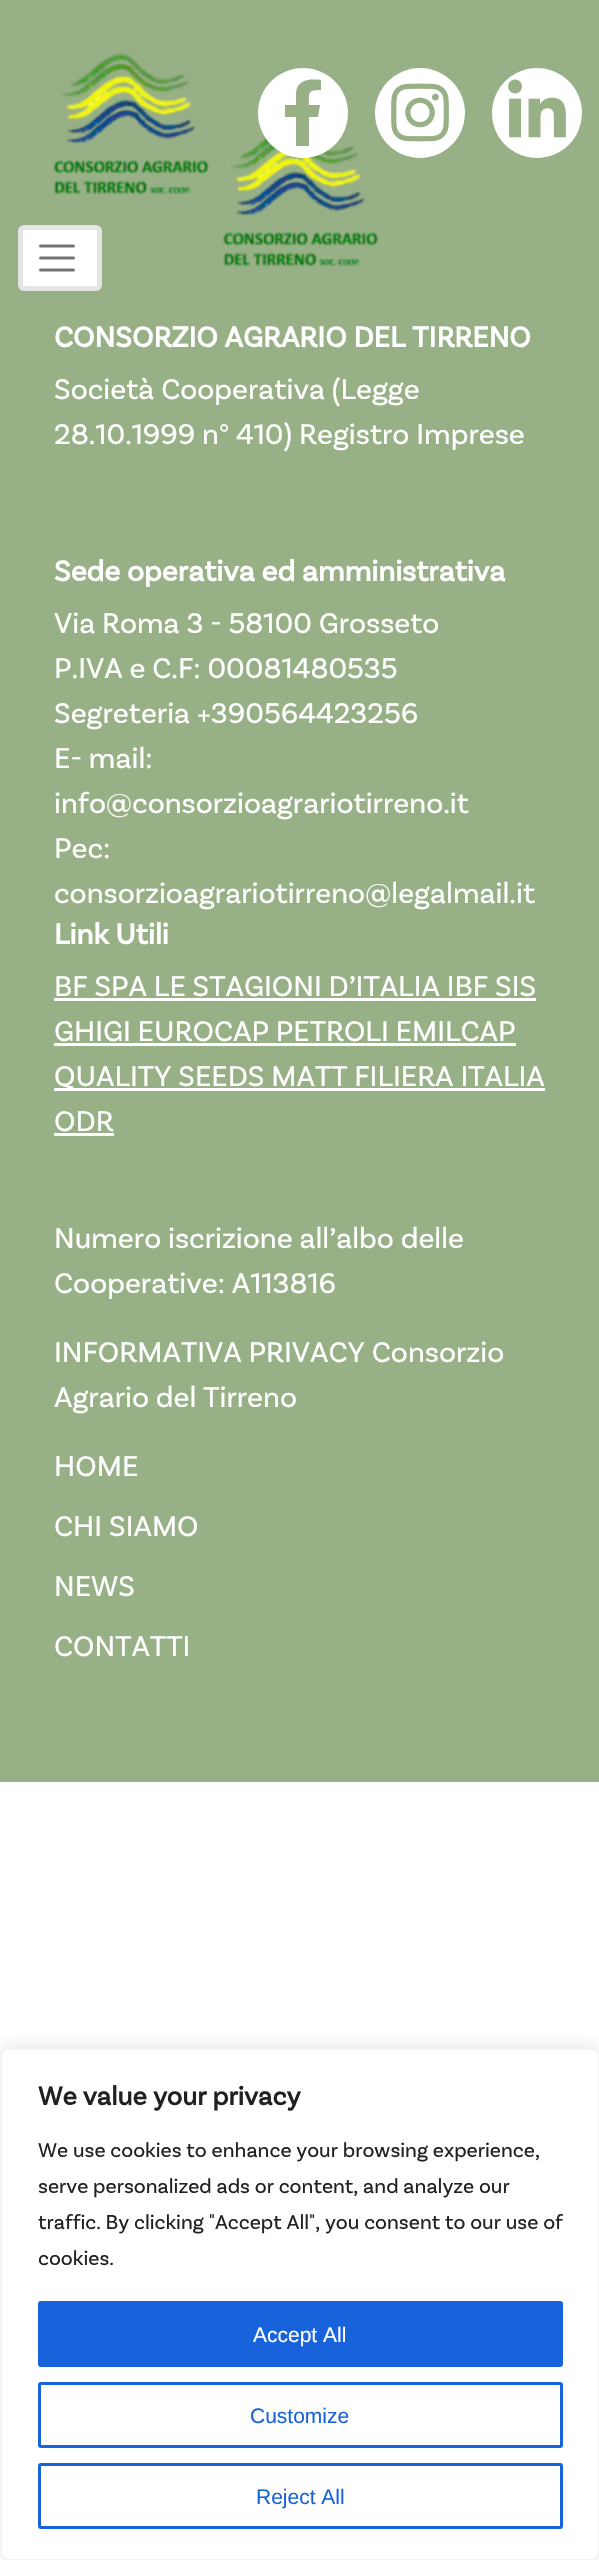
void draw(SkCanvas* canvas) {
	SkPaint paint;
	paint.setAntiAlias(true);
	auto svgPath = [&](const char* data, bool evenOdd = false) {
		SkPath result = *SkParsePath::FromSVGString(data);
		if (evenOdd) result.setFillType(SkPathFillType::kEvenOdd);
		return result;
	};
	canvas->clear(0xffffffff);
	paint.setColor(0xff97b086);
	canvas->drawRect(SkRect::MakeXYWH(0, 0, 599, 1782), paint);
	canvas->drawImageRect(SkImages::DeferredFromEncodedData(SkData::MakeFromFileName("img1.png")), SkRect::MakeXYWH(53, 53, 156, 142), SkSamplingOptions());
	canvas->drawImageRect(SkImages::DeferredFromEncodedData(SkData::MakeFromFileName("img4.png")), SkRect::MakeXYWH(223, 137, 156, 130), SkSamplingOptions());
	paint.setColor(0xffffffff);
	canvas->drawCircle(303, 113, 45, paint);
	paint.setColor(0xff97b086);
	canvas->drawPath(svgPath("M318 117L320 105H309C309 93 307 90 321 90V80C310 79 298 79 296 92V105H285V117H296V146H309V117Z"), paint);
	paint.setColor(0xffffffff);
	canvas->drawCircle(420, 113, 45, paint);
	canvas->drawImageRect(SkImages::DeferredFromEncodedData(SkData::MakeFromFileName("img2.png")), SkRect::MakeXYWH(391, 83, 58, 59), SkSamplingOptions());
	canvas->drawCircle(537, 113, 45, paint);
	canvas->drawImageRect(SkImages::DeferredFromEncodedData(SkData::MakeFromFileName("img3.png")), SkRect::MakeXYWH(508, 79, 58, 59), SkSamplingOptions());
	canvas->drawRoundRect(SkRect::MakeXYWH(18, 225, 84, 66), 6, 6, paint);
	paint.setStroke(true);
	paint.setStrokeWidth(5);
	paint.setColor(0x1a000000);
	canvas->drawRoundRect(SkRect::MakeXYWH(20.5, 227.5, 79, 61), 3.5, 3.5, paint);
	paint.setStrokeWidth(3);
	paint.setStrokeCap(SkPaint::kRound_Cap);
	paint.setColor(0xff737373);
	canvas->drawPath(svgPath("M40.5 246H73.5M40.5 258H73.5M40.5 270H73.5"), paint);
	SkFont f1(fontMgr->matchFamilyStyle("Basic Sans", SkFontStyle::Bold()), 30);
	f1.setSubpixel(true);
	paint.setStroke(false);
	paint.setColor(0xffffffff);
	canvas->drawString("CONSORZIO AGRARIO DEL TIRRENO", 54, 347, f1, paint);
	SkFont f2(fontMgr->matchFamilyStyle("Basic Sans", SkFontStyle::Normal()), 30);
	f2.setSubpixel(true);
	canvas->drawString("Società Cooperativa (Legge", 54, 399, f2, paint);
	canvas->drawString("28.10.1999 n° 410) Registro Imprese", 54, 444, f2, paint);
	canvas->drawString("Sede operativa ed amministrativa", 54, 581, f1, paint);
	canvas->drawString("Via Roma 3 - 58100 Grosseto", 54, 633, f2, paint);
	canvas->drawString("P.IVA e C.F: 00081480535", 54, 678, f2, paint);
	canvas->drawString("Segreteria +390564423256", 54, 723, f2, paint);
	canvas->drawString("E- mail:", 54, 768, f2, paint);
	canvas->drawString("info@consorzioagrariotirreno.it", 54, 813, f2, paint);
	canvas->drawString("Pec:", 54, 858, f2, paint);
	canvas->drawString("consorzioagrariotirreno@legalmail.it", 54, 903, f2, paint);
	canvas->drawString("Link Utili", 54, 944, f1, paint);
	canvas->drawString("BF SPA LE STAGIONI D’ITALIA IBF SIS", 54, 996, f2, paint);
	canvas->drawRect(SkRect::MakeXYWH(54, 998, 482, 3), paint);
	canvas->drawString("GHIGI EUROCAP PETROLI EMILCAP", 54, 1041, f2, paint);
	canvas->drawRect(SkRect::MakeXYWH(54, 1043, 462, 3), paint);
	canvas->drawRect(SkRect::MakeXYWH(54, 1088, 491, 3), paint);
	canvas->drawString("QUALITY SEEDS MATT FILIERA ITALIA", 54, 1086, f2, paint);
	canvas->drawString("ODR", 54, 1131, f2, paint);
	canvas->drawRect(SkRect::MakeXYWH(54, 1133, 60, 3), paint);
	canvas->drawString("Numero iscrizione all’albo delle", 54, 1248, f2, paint);
	canvas->drawString("Cooperative: A113816", 54, 1293, f2, paint);
	canvas->drawString("INFORMATIVA PRIVACY Consorzio", 54, 1362, f2, paint);
	canvas->drawString("Agrario del Tirreno", 54, 1407, f2, paint);
	canvas->drawString("HOME", 54, 1476, f2, paint);
	canvas->drawString("CHI SIAMO", 54, 1536, f2, paint);
	canvas->drawString("NEWS", 54, 1596, f2, paint);
	canvas->drawString("CONTATTI", 54, 1656, f2, paint);
	paint.setColor(0x4dacabab);
	paint.setMaskFilter(SkMaskFilter::MakeBlur(kNormal_SkBlurStyle, 7.5));
	canvas->drawRoundRect(SkRect::MakeXYWH(0, 2046, 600, 513), 9, 9, paint);
	paint.setMaskFilter(nullptr);
	paint.setColor(0xffffffff);
	canvas->drawRoundRect(SkRect::MakeXYWH(1, 2049, 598, 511), 8, 8, paint);
	paint.setStroke(true);
	paint.setStrokeWidth(2);
	paint.setStrokeCap(SkPaint::kButt_Cap);
	paint.setColor(0xfff4f4f4);
	canvas->drawRoundRect(SkRect::MakeXYWH(1, 2049, 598, 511), 8, 8, paint);
	SkFont f3(fontMgr->matchFamilyStyle("Basic Sans", SkFontStyle::Bold()), 27);
	f3.setSubpixel(true);
	paint.setStroke(false);
	paint.setColor(0xff212121);
	canvas->drawString("We value your privacy", 38, 2105, f3, paint);
	SkFont f4(fontMgr->matchFamilyStyle("Basic Sans", SkFontStyle::Normal()), 21);
	f4.setSubpixel(true);
	canvas->drawString("We use cookies to enhance your browsing experience,", 38, 2157, f4, paint);
	canvas->drawString("serve personalized ads or content, and analyze our", 38, 2193, f4, paint);
	canvas->drawString("traffic. By clicking \"Accept All\", you consent to our use of", 38, 2229, f4, paint);
	canvas->drawString("cookies.", 38, 2265, f4, paint);
	paint.setColor(0xff1863dc);
	canvas->drawRoundRect(SkRect::MakeXYWH(39.5, 2302.5, 522, 63), 1.5, 1.5, paint);
	paint.setStroke(true);
	paint.setStrokeWidth(3);
	canvas->drawRoundRect(SkRect::MakeXYWH(39.5, 2302.5, 522, 63), 1.5, 1.5, paint);
	SkFont f5(fontMgr->matchFamilyStyle("Liberation Sans", SkFontStyle::Normal()), 21);
	f5.setSubpixel(true);
	paint.setStroke(false);
	paint.setColor(0xffffffff);
	canvas->drawString("Accept All", 253, 2342, f5, paint);
	paint.setStroke(true);
	paint.setColor(0xff1863dc);
	canvas->drawRoundRect(SkRect::MakeXYWH(39.5, 2383.5, 522, 63), 1.5, 1.5, paint);
	paint.setStroke(false);
	canvas->drawString("Customize", 250, 2423, f5, paint);
	paint.setStroke(true);
	canvas->drawRoundRect(SkRect::MakeXYWH(39.5, 2464.5, 522, 63), 1.5, 1.5, paint);
	paint.setStroke(false);
	canvas->drawString("Reject All", 256, 2504, f5, paint);
}
